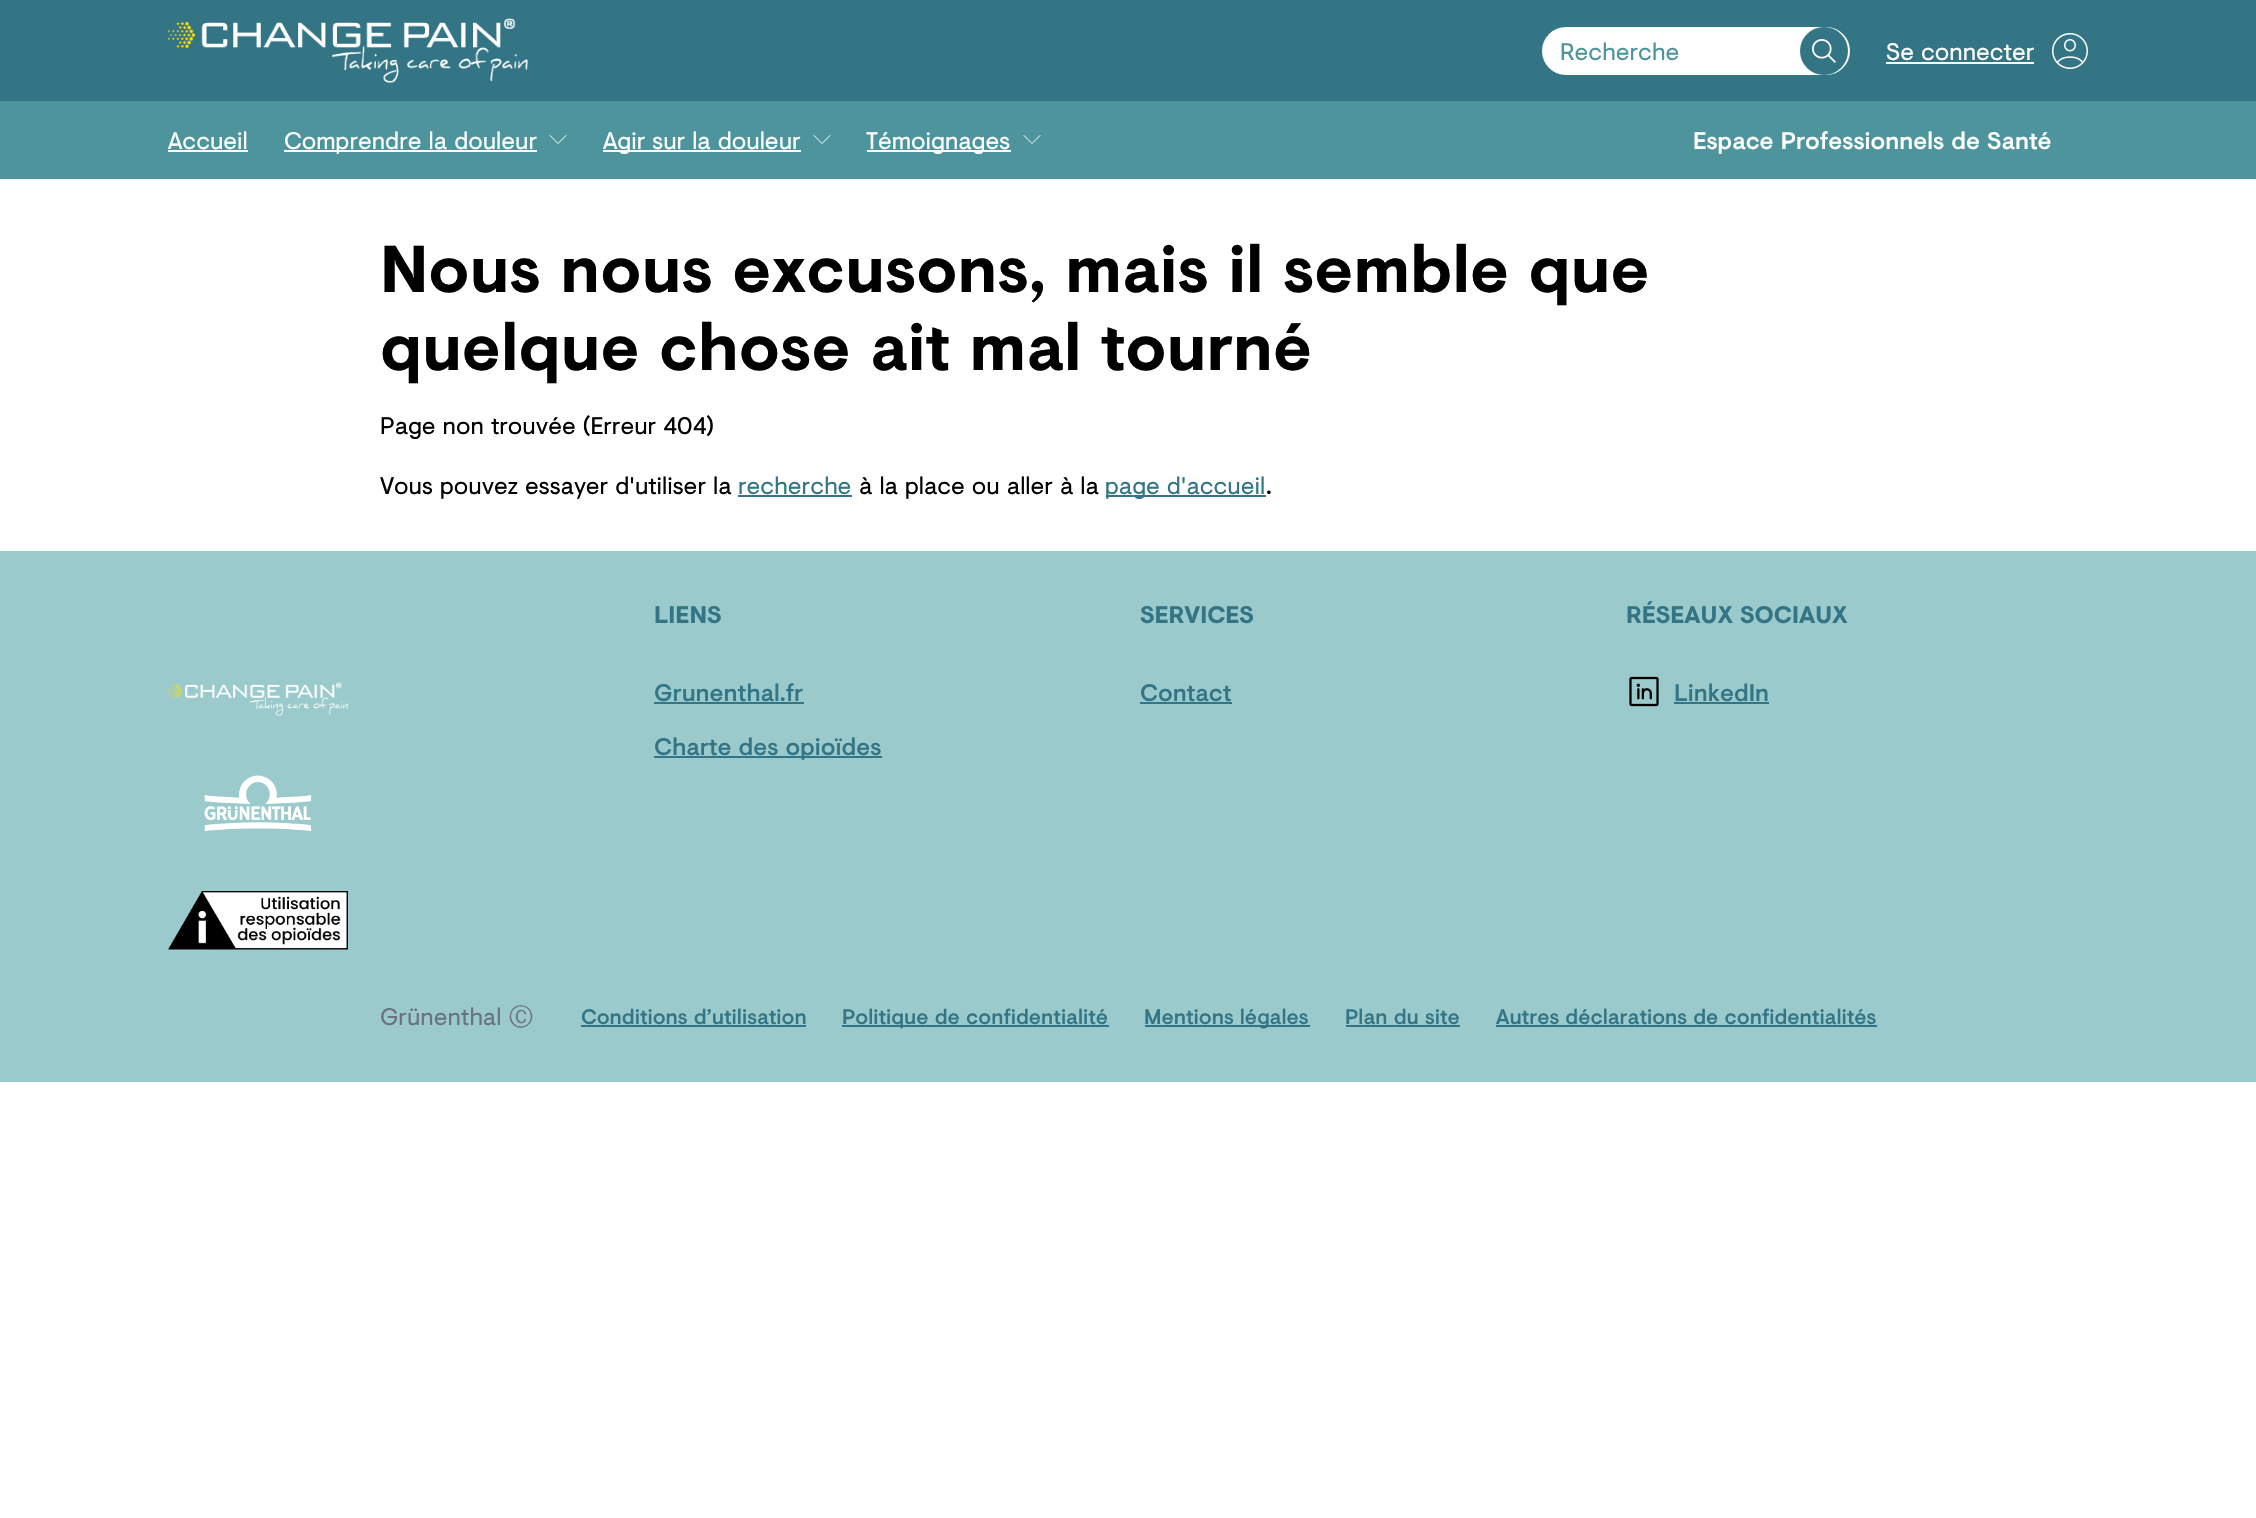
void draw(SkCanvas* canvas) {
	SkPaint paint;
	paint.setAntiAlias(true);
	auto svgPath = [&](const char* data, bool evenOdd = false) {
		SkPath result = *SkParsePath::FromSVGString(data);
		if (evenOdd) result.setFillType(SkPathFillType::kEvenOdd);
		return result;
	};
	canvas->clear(0xffffffff);
	paint.setColor(0xff337585);
	canvas->drawRect(SkRect::MakeXYWH(0, 0, 2256, 101), paint);
	canvas->drawImageRect(SkImages::DeferredFromEncodedData(SkData::MakeFromFileName("img1.png")), SkRect::MakeXYWH(168, 18, 360, 65), SkSamplingOptions());
	paint.setColor(0xffffffff);
	canvas->drawRoundRect(SkRect::MakeXYWH(1542, 27, 308, 48), 24, 24, paint);
	SkFont f1(fontMgr->matchFamilyStyle("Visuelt", SkFontStyle::Normal()), 24);
	f1.setSubpixel(true);
	paint.setColor(0xff4e949c);
	canvas->drawString("Recherche", 1560, 60, f1, paint);
	paint.setColor(0xff337585);
	canvas->drawCircle(1824, 51, 24, paint);
	canvas->drawImageRect(SkImages::DeferredFromEncodedData(SkData::MakeFromFileName("img2.png")), SkRect::MakeXYWH(1812, 39, 24, 24), SkSamplingOptions());
	paint.setColor(0xffffffff);
	canvas->drawString("Se connecter", 1886, 60, f1, paint);
	canvas->drawRect(SkRect::MakeXYWH(1886, 62, 148, 2), paint);
	canvas->drawImageRect(SkImages::DeferredFromEncodedData(SkData::MakeFromFileName("img3.png")), SkRect::MakeXYWH(2052, 33, 36, 36), SkSamplingOptions());
	paint.setColor(0xff4e949c);
	canvas->drawRect(SkRect::MakeXYWH(0, 101, 2256, 78), paint);
	paint.setColor(0xffffffff);
	canvas->drawString("Accueil", 168, 149, f1, paint);
	canvas->drawRect(SkRect::MakeXYWH(168, 150, 80, 2), paint);
	canvas->drawRect(SkRect::MakeXYWH(284, 150, 253, 2), paint);
	canvas->drawString("Comprendre la douleur", 284, 149, f1, paint);
	paint.setStroke(true);
	paint.setStrokeWidth(1);
	paint.setStrokeCap(SkPaint::kRound_Cap);
	paint.setStrokeJoin(SkPaint::kRound_Join);
	canvas->drawPath(svgPath("M566 135.5L558 143.5L550 135.5"), paint);
	paint.setStroke(false);
	canvas->drawRect(SkRect::MakeXYWH(603, 150, 198, 2), paint);
	canvas->drawString("Agir sur la douleur", 603, 149, f1, paint);
	paint.setStroke(true);
	canvas->drawPath(svgPath("M830 135.5L822 143.5L814 135.5"), paint);
	paint.setStroke(false);
	canvas->drawRect(SkRect::MakeXYWH(867, 150, 144, 2), paint);
	canvas->drawString("Témoignages", 866, 149, f1, paint);
	paint.setStroke(true);
	canvas->drawPath(svgPath("M1040 135.5L1032 143.5L1024 135.5"), paint);
	SkFont f2(fontMgr->matchFamilyStyle("Visuelt", SkFontStyle(500, SkFontStyle::kNormal_Width, SkFontStyle::kUpright_Slant)), 24);
	f2.setSubpixel(true);
	paint.setStroke(false);
	canvas->drawString("Espace Professionnels de Santé", 1693, 149, f2, paint);
	SkFont f3(fontMgr->matchFamilyStyle("Visuelt", SkFontStyle::Bold()), 66);
	f3.setSubpixel(true);
	paint.setColor(0xff000000);
	canvas->drawString("Nous nous excusons, mais il semble que", 380, 292, f3, paint);
	canvas->drawString("quelque chose ait mal tourné", 380, 370, f3, paint);
	canvas->drawString("Page non trouvée (Erreur 404)", 380, 434, f1, paint);
	canvas->drawString("Vous pouvez essayer d'utiliser la", 380, 494, f1, paint);
	paint.setColor(0xff337585);
	canvas->drawString("recherche", 738, 494, f1, paint);
	canvas->drawRect(SkRect::MakeXYWH(738, 495, 114, 2), paint);
	paint.setColor(0xff000000);
	canvas->drawString("à la place ou aller à la", 859, 494, f1, paint);
	paint.setColor(0xff337585);
	canvas->drawRect(SkRect::MakeXYWH(1106, 495, 160, 2), paint);
	canvas->drawString("page d'accueil", 1105, 494, f1, paint);
	paint.setColor(0xff000000);
	canvas->drawString(".", 1266, 494, f1, paint);
	paint.setColor(0xff9bcacc);
	canvas->drawRect(SkRect::MakeXYWH(0, 551, 2256, 531), paint);
	SkFont f4(fontMgr->matchFamilyStyle("Visuelt", SkFontStyle::Bold()), 24);
	f4.setSubpixel(true);
	paint.setColor(0xff337585);
	canvas->drawString("LIENS", 654, 623, f4, paint);
	canvas->drawString("Grunenthal.fr", 654, 701, f2, paint);
	canvas->drawRect(SkRect::MakeXYWH(654, 702, 150, 2), paint);
	canvas->drawRect(SkRect::MakeXYWH(654, 756, 228, 2), paint);
	canvas->drawString("Charte des opioïdes", 654, 755, f2, paint);
	canvas->drawString("SERVICES", 1140, 623, f4, paint);
	canvas->drawString("Contact", 1140, 701, f2, paint);
	canvas->drawRect(SkRect::MakeXYWH(1140, 702, 92, 2), paint);
	canvas->drawString("RÉSEAUX SOCIAUX", 1626, 623, f4, paint);
	canvas->drawImageRect(SkImages::DeferredFromEncodedData(SkData::MakeFromFileName("img4.png")), SkRect::MakeXYWH(1629, 676, 30, 31), SkSamplingOptions());
	canvas->drawString("LinkedIn", 1674, 701, f2, paint);
	canvas->drawRect(SkRect::MakeXYWH(1674, 702, 95, 2), paint);
	canvas->drawImageRect(SkImages::DeferredFromEncodedData(SkData::MakeFromFileName("img5.png")), SkRect::MakeXYWH(168, 682, 180, 34), SkSamplingOptions());
	canvas->drawImageRect(SkImages::DeferredFromEncodedData(SkData::MakeFromFileName("img6.png")), SkRect::MakeXYWH(204, 775, 108, 56), SkSamplingOptions());
	canvas->drawImageRect(SkImages::DeferredFromEncodedData(SkData::MakeFromFileName("img7.png")), SkRect::MakeXYWH(168, 891, 180, 59), SkSamplingOptions());
	paint.setColor(0xff6b7280);
	canvas->drawString("Grünenthal", 380, 1025, f1, paint);
	SkFont f5(fontMgr->matchFamilyStyle("WenQuanYi Zen Hei", SkFontStyle(500, SkFontStyle::kNormal_Width, SkFontStyle::kUpright_Slant)), 24);
	f5.setSubpixel(true);
	canvas->drawString("Ⓒ", 509, 1025, f5, paint);
	SkFont f6(fontMgr->matchFamilyStyle("Visuelt", SkFontStyle(500, SkFontStyle::kNormal_Width, SkFontStyle::kUpright_Slant)), 21);
	f6.setSubpixel(true);
	paint.setColor(0xff337585);
	canvas->drawString("Conditions d’utilisation", 581, 1024, f6, paint);
	canvas->drawRect(SkRect::MakeXYWH(581, 1025, 225, 2), paint);
	canvas->drawRect(SkRect::MakeXYWH(842, 1025, 267, 2), paint);
	canvas->drawString("Politique de confidentialité", 842, 1024, f6, paint);
	canvas->drawRect(SkRect::MakeXYWH(1145, 1025, 165, 2), paint);
	canvas->drawString("Mentions légales", 1144, 1024, f6, paint);
	canvas->drawString("Plan du site", 1345, 1024, f6, paint);
	canvas->drawRect(SkRect::MakeXYWH(1346, 1025, 114, 2), paint);
	canvas->drawString("Autres déclarations de confidentialités", 1496, 1024, f6, paint);
	canvas->drawRect(SkRect::MakeXYWH(1496, 1025, 381, 2), paint);
}
